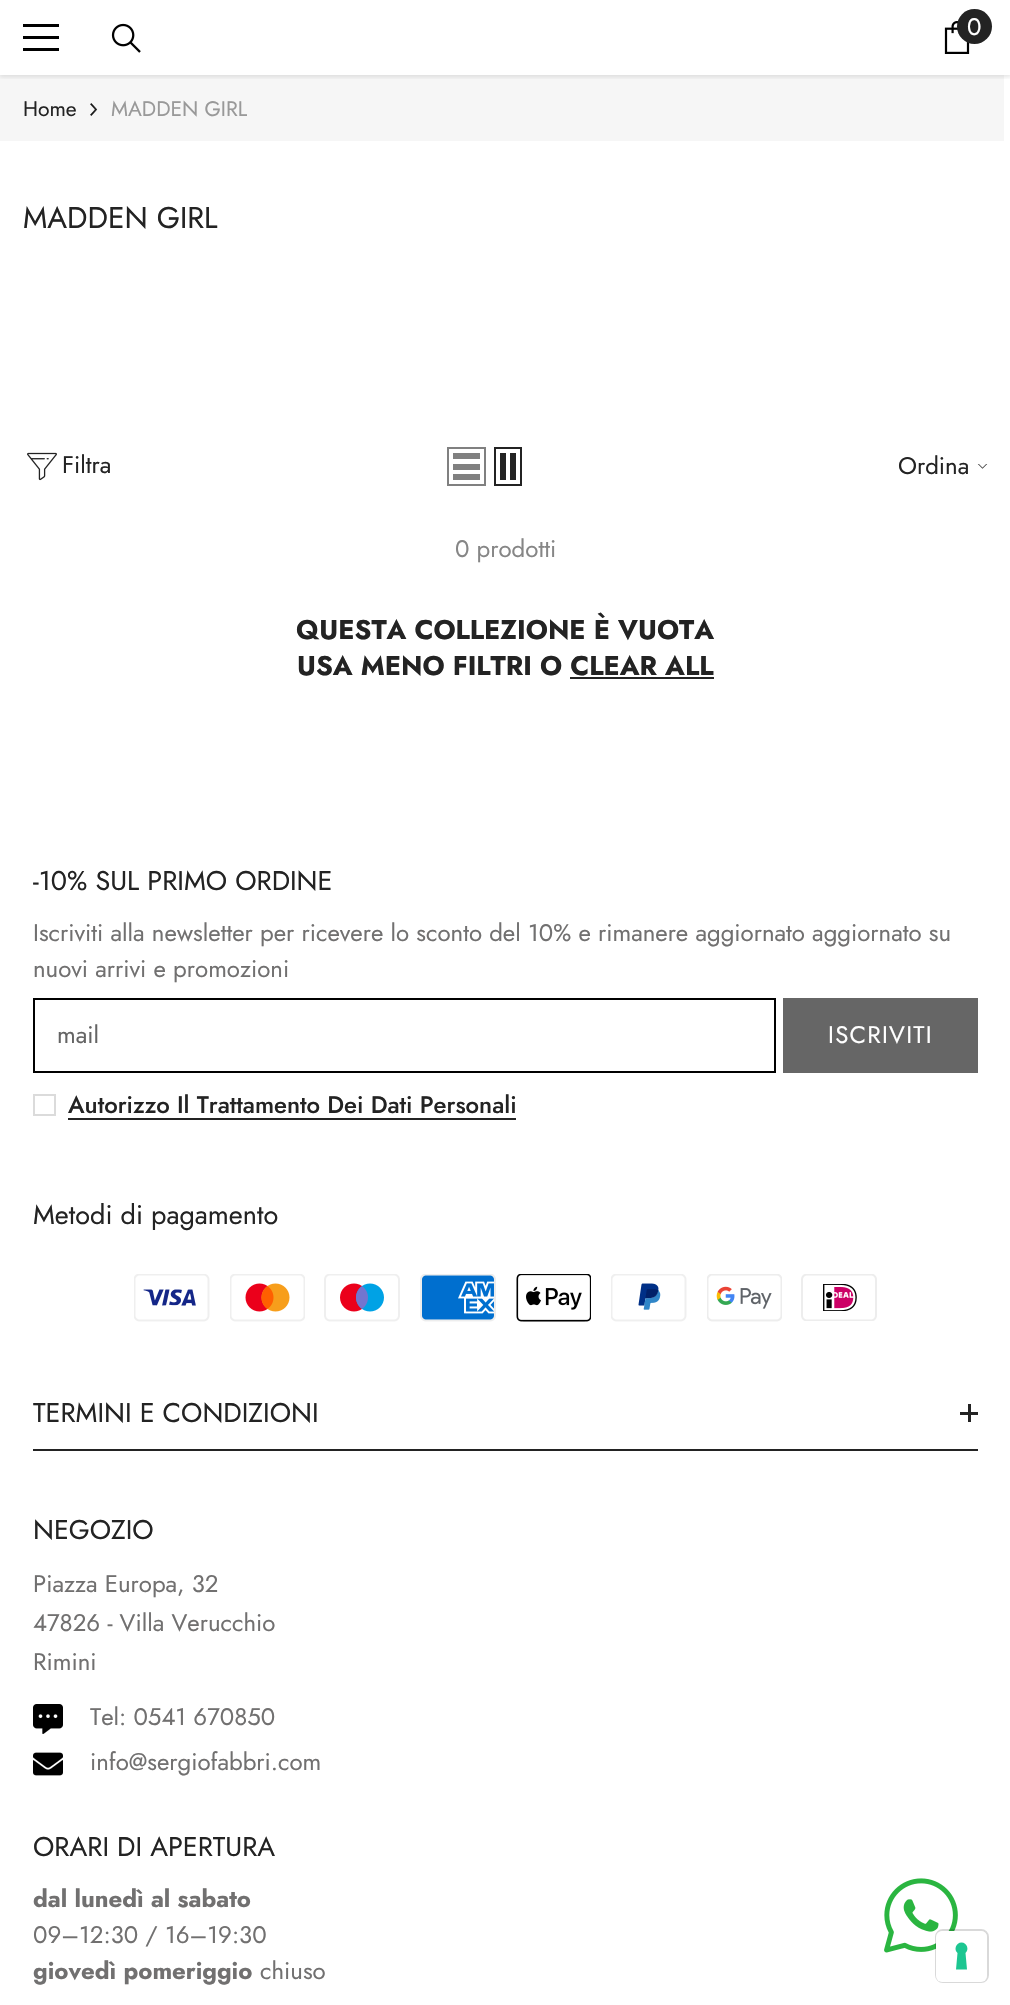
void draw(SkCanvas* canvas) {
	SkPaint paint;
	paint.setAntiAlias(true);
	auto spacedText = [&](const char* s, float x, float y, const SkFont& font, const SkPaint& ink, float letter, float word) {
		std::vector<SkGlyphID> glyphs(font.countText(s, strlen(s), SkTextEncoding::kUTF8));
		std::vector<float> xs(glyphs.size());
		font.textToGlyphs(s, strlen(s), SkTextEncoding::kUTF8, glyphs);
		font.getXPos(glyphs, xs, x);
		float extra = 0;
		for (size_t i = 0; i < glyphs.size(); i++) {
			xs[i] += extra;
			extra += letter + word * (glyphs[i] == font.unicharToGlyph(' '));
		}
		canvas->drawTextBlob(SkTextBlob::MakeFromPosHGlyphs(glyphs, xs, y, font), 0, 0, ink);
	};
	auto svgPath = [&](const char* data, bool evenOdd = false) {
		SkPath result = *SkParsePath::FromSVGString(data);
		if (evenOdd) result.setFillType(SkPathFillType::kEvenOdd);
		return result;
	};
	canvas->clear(0xffffffff);
	paint.setColor(0xfff6f6f6);
	canvas->drawRect(SkRect::MakeXYWH(0, 75, 1004, 66), paint);
	canvas->save();
	canvas->clipRect(SkRect::MakeXYWH(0, 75, 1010, 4));
	paint.setColor(0x1a000000);
	paint.setMaskFilter(SkMaskFilter::MakeBlur(kNormal_SkBlurStyle, 2));
	canvas->drawRect(SkRect::MakeXYWH(0, 2, 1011, 75), paint);
	paint.setMaskFilter(nullptr);
	canvas->restore();
	paint.setColor(0xff000000);
	canvas->drawRect(SkRect::MakeXYWH(23, 36, 36, 3), paint);
	canvas->drawRect(SkRect::MakeXYWH(23, 24, 36, 3), paint);
	canvas->drawRect(SkRect::MakeXYWH(23, 48, 36, 3), paint);
	canvas->drawImageRect(SkImages::DeferredFromEncodedData(SkData::MakeFromFileName("img1.png")), SkRect::MakeXYWH(111, 23, 30, 30), SkSamplingOptions());
	canvas->drawImageRect(SkImages::DeferredFromEncodedData(SkData::MakeFromFileName("img2.png")), SkRect::MakeXYWH(944, 21, 26, 33), SkSamplingOptions());
	paint.setColor(0xff232323);
	canvas->drawCircle(974.5, 26.5, 17.5, paint);
	SkFont f1(fontMgr->matchFamilyStyle("Jost", SkFontStyle::Normal()), 24);
	f1.setSubpixel(true);
	paint.setColor(0xffffffff);
	canvas->drawString("0", 967, 35, f1, paint);
	SkFont f2(fontMgr->matchFamilyStyle("Jost", SkFontStyle::Normal()), 21);
	f2.setSubpixel(true);
	paint.setColor(0xff232323);
	canvas->drawString("Home", 23, 116, f2, paint);
	canvas->drawImageRect(SkImages::DeferredFromEncodedData(SkData::MakeFromFileName("img3.png")), SkRect::MakeXYWH(90, 103, 8, 13), SkSamplingOptions());
	paint.setColor(0xff999999);
	canvas->drawString("MADDEN GIRL", 111, 116, f2, paint);
	SkFont f3(fontMgr->matchFamilyStyle("Jost", SkFontStyle::Normal()), 30);
	f3.setSubpixel(true);
	paint.setColor(0xff232323);
	canvas->drawString("MADDEN GIRL", 23, 228, f3, paint);
	canvas->drawImageRect(SkImages::DeferredFromEncodedData(SkData::MakeFromFileName("img4.png")), SkRect::MakeXYWH(27, 452, 30, 29), SkSamplingOptions());
	canvas->drawString("Filtra", 62, 473, f1, paint);
	paint.setStroke(true);
	paint.setStrokeWidth(2);
	paint.setColor(0xff808080);
	canvas->drawRect(SkRect::MakeXYWH(448, 448, 37, 37), paint);
	paint.setStroke(false);
	canvas->drawRect(SkRect::MakeXYWH(453, 474, 27, 6), paint);
	canvas->drawRect(SkRect::MakeXYWH(453, 464, 27, 6), paint);
	canvas->drawRect(SkRect::MakeXYWH(453, 453, 27, 6), paint);
	paint.setStroke(true);
	paint.setColor(0xff232323);
	canvas->drawRect(SkRect::MakeXYWH(495, 448, 26, 37), paint);
	paint.setStroke(false);
	canvas->drawRect(SkRect::MakeXYWH(510, 453, 6, 27), paint);
	canvas->drawRect(SkRect::MakeXYWH(500, 453, 6, 27), paint);
	canvas->drawString("Ordina", 898, 474, f1, paint);
	canvas->drawImageRect(SkImages::DeferredFromEncodedData(SkData::MakeFromFileName("img5.png")), SkRect::MakeXYWH(977, 464, 11, 5), SkSamplingOptions());
	paint.setColor(0xff868686);
	canvas->drawString("0 prodotti", 455, 557, f1, paint);
	SkFont f4(fontMgr->matchFamilyStyle("Jost", SkFontStyle::Bold()), 27);
	f4.setSubpixel(true);
	paint.setColor(0xff232323);
	canvas->drawString("QUESTA COLLEZIONE È VUOTA", 296, 639, f4, paint);
	canvas->drawString("USA MENO FILTRI O CLEAR ALL", 297, 675, f4, paint);
	canvas->drawRect(SkRect::MakeXYWH(570, 677, 144, 2), paint);
	SkFont f5(fontMgr->matchFamilyStyle("Jost", SkFontStyle::Normal()), 27);
	f5.setSubpixel(true);
	canvas->drawString("-10% SUL PRIMO ORDINE", 33, 890, f5, paint);
	paint.setColor(0xff717070);
	canvas->drawString("Iscriviti alla newsletter per ricevere lo sconto del 10% e rimanere aggiornato aggiornato su", 33, 941, f1, paint);
	canvas->drawString("nuovi arrivi e promozioni", 33, 977, f1, paint);
	paint.setStroke(true);
	paint.setColor(0xff000000);
	canvas->drawRect(SkRect::MakeXYWH(34, 999, 741, 73), paint);
	paint.setStroke(false);
	paint.setColor(0xff646464);
	canvas->drawString("mail", 57, 1043, f1, paint);
	paint.setColor(0xff666666);
	canvas->drawRect(SkRect::MakeXYWH(783, 998, 195, 75), paint);
	paint.setColor(0xffffffff);
	spacedText("ISCRIVITI", 828, 1043, f1, paint, 1.25, 0);
	paint.setStroke(true);
	paint.setColor(0xffdbdbdb);
	canvas->drawRect(SkRect::MakeXYWH(34, 1095, 21, 20), paint);
	SkFont f6(fontMgr->matchFamilyStyle("Jost", SkFontStyle(500, SkFontStyle::kNormal_Width, SkFontStyle::kUpright_Slant)), 24);
	f6.setSubpixel(true);
	paint.setStroke(false);
	paint.setColor(0xff232323);
	canvas->drawString("Autorizzo Il Trattamento Dei Dati Personali", 68, 1113, f6, paint);
	canvas->drawRect(SkRect::MakeXYWH(68, 1118, 448, 2), paint);
	canvas->drawString("Metodi di pagamento", 33, 1224, f5, paint);
	canvas->drawImageRect(SkImages::DeferredFromEncodedData(SkData::MakeFromFileName("img6.png")), SkRect::MakeXYWH(134, 1274, 76, 48), SkSamplingOptions());
	canvas->drawImageRect(SkImages::DeferredFromEncodedData(SkData::MakeFromFileName("img7.png")), SkRect::MakeXYWH(230, 1274, 75, 48), SkSamplingOptions());
	canvas->drawImageRect(SkImages::DeferredFromEncodedData(SkData::MakeFromFileName("img8.png")), SkRect::MakeXYWH(324, 1274, 76, 48), SkSamplingOptions());
	canvas->drawImageRect(SkImages::DeferredFromEncodedData(SkData::MakeFromFileName("img9.png")), SkRect::MakeXYWH(420, 1274, 76, 48), SkSamplingOptions());
	canvas->drawImageRect(SkImages::DeferredFromEncodedData(SkData::MakeFromFileName("img10.png")), SkRect::MakeXYWH(516, 1274, 75, 48), SkSamplingOptions());
	canvas->drawImageRect(SkImages::DeferredFromEncodedData(SkData::MakeFromFileName("img11.png")), SkRect::MakeXYWH(611, 1274, 76, 48), SkSamplingOptions());
	canvas->drawImageRect(SkImages::DeferredFromEncodedData(SkData::MakeFromFileName("img12.png")), SkRect::MakeXYWH(707, 1274, 75, 48), SkSamplingOptions());
	canvas->drawImageRect(SkImages::DeferredFromEncodedData(SkData::MakeFromFileName("img13.png")), SkRect::MakeXYWH(801, 1274, 76, 47), SkSamplingOptions());
	canvas->drawRect(SkRect::MakeXYWH(33, 1449, 945, 2), paint);
	canvas->drawString("TERMINI E CONDIZIONI", 33, 1422, f5, paint);
	canvas->drawRect(SkRect::MakeXYWH(968, 1404, 3, 18), paint);
	canvas->drawRect(SkRect::MakeXYWH(960, 1412, 18, 3), paint);
	canvas->drawString("NEGOZIO", 33, 1539, f5, paint);
	paint.setColor(0xff717070);
	canvas->drawString("Piazza Europa, 32", 33, 1592, f1, paint);
	canvas->drawString("47826 - Villa Verucchio", 33, 1631, f1, paint);
	canvas->drawString("Rimini", 33, 1670, f1, paint);
	canvas->drawImageRect(SkImages::DeferredFromEncodedData(SkData::MakeFromFileName("img14.png")), SkRect::MakeXYWH(33, 1704, 30, 30), SkSamplingOptions());
	canvas->drawString("Tel: 0541 670850", 90, 1725, f1, paint);
	canvas->drawImageRect(SkImages::DeferredFromEncodedData(SkData::MakeFromFileName("img15.png")), SkRect::MakeXYWH(33, 1752, 30, 24), SkSamplingOptions());
	canvas->drawString("info@sergiofabbri.com", 90, 1770, f1, paint);
	paint.setColor(0xff232323);
	canvas->drawString("ORARI DI APERTURA", 33, 1856, f5, paint);
	SkFont f7(fontMgr->matchFamilyStyle("Jost", SkFontStyle::Bold()), 24);
	f7.setSubpixel(true);
	paint.setColor(0xff717070);
	canvas->drawString("dal lunedì al sabato", 33, 1907, f7, paint);
	canvas->drawString("09–12:30 / 16–19:30", 33, 1943, f1, paint);
	canvas->drawString("giovedì pomeriggio", 33, 1979, f7, paint);
	canvas->drawString("chiuso", 260, 1979, f1, paint);
	canvas->drawImageRect(SkImages::DeferredFromEncodedData(SkData::MakeFromFileName("img16.png")), SkRect::MakeXYWH(884, 1878, 74, 75), SkSamplingOptions());
	paint.setStroke(true);
	paint.setColor(0x26000000);
	canvas->drawRoundRect(SkRect::MakeXYWH(936, 1930, 52, 52), 7, 7, paint);
	paint.setStroke(false);
	paint.setColor(0xffffffff);
	canvas->drawRoundRect(SkRect::MakeXYWH(936, 1931, 51, 51), 6, 6, paint);
	paint.setColor(0xff1cc691);
	canvas->drawPath(svgPath("M961.5 1942.5C967 1942.5 969.5 1949.5 965.5 1953L967 1969.5H956L957.5 1953C953.5 1949.5 956 1942.5 961.5 1942.5Z", true), paint);
}
